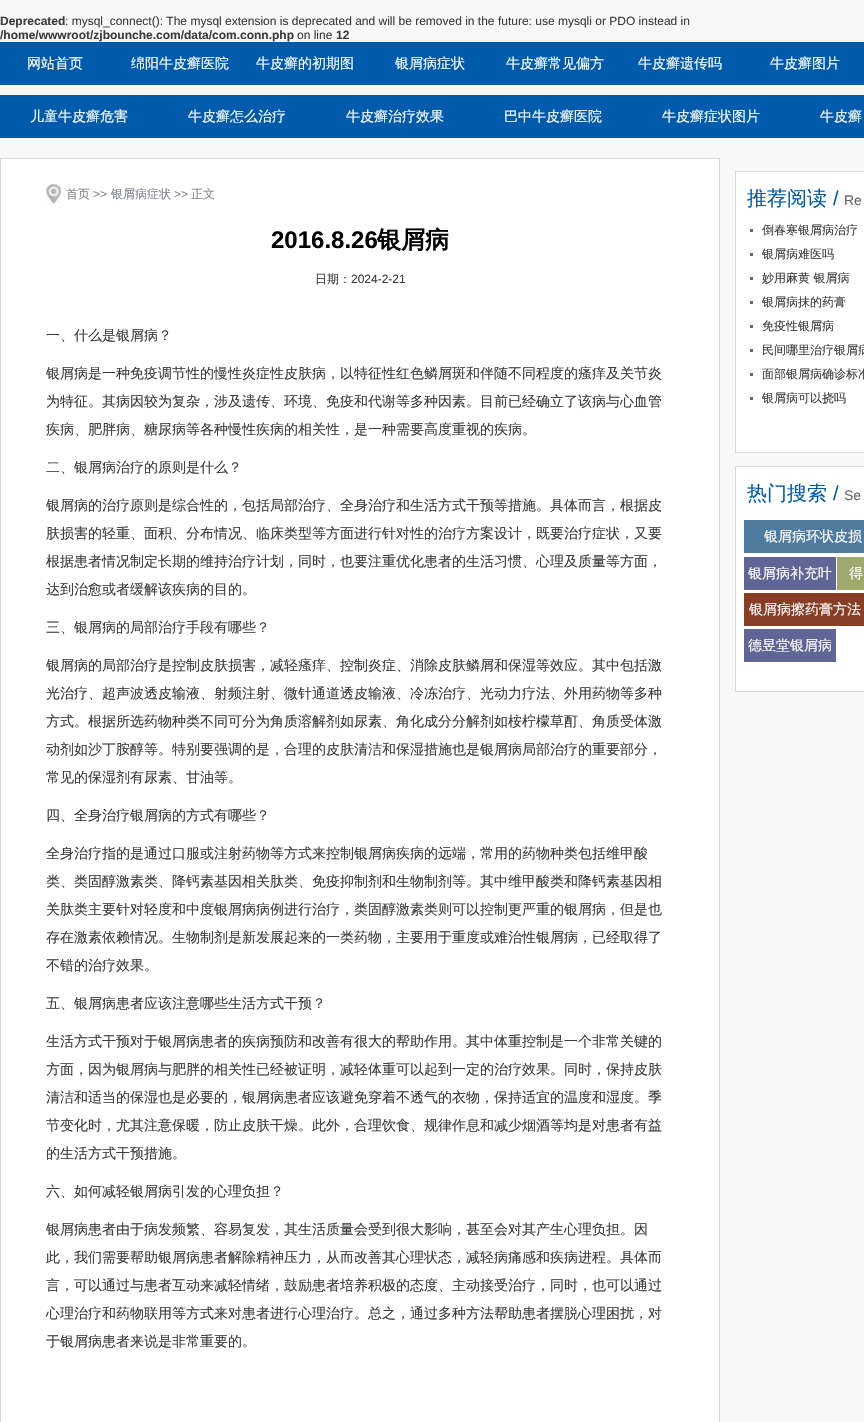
void draw(SkCanvas* canvas) {
	SkPaint paint;
	paint.setAntiAlias(true);
	canvas->clear(0xfff9f8f8);
	SkFont f1(fontMgr->matchFamilyStyle("Liberation Sans", SkFontStyle::Bold()), 12);
	f1.setSubpixel(true);
	paint.setColor(0xff3d3b3b);
	canvas->drawString("Deprecated", 0, 25, f1, paint);
	SkFont f2(fontMgr->matchFamilyStyle("Liberation Sans", SkFontStyle::Normal()), 12);
	f2.setSubpixel(true);
	canvas->drawString(": mysql_connect(): The mysql extension is deprecated and will be removed in the future: use mysqli or PDO instead in", 65, 25, f2, paint);
	canvas->drawString("/home/wwwroot/zjbounche.com/data/com.conn.php", 0, 39, f1, paint);
	canvas->drawString("on line", 297, 39, f2, paint);
	canvas->drawString("12", 336, 39, f1, paint);
	paint.setColor(0xff005bac);
	canvas->drawRect(SkRect::MakeXYWH(0, 42, 864, 43), paint);
	SkFont f3(fontMgr->matchFamilyStyle("WenQuanYi Zen Hei", SkFontStyle(500, SkFontStyle::kNormal_Width, SkFontStyle::kUpright_Slant)), 14);
	f3.setSubpixel(true);
	paint.setColor(0xffffffff);
	canvas->drawString("网站首页", 27, 68, f3, paint);
	canvas->drawString("绵阳牛皮癣医院", 131, 68, f3, paint);
	canvas->drawString("牛皮癣的初期图", 256, 68, f3, paint);
	canvas->drawString("银屑病症状", 395, 68, f3, paint);
	canvas->drawString("牛皮癣常见偏方", 506, 68, f3, paint);
	canvas->drawString("牛皮癣遗传吗", 638, 68, f3, paint);
	canvas->drawString("牛皮癣图片", 770, 68, f3, paint);
	paint.setColor(0xff005bac);
	canvas->drawRect(SkRect::MakeXYWH(0, 95, 864, 43), paint);
	paint.setColor(0xffffffff);
	canvas->drawString("儿童牛皮癣危害", 30, 121, f3, paint);
	canvas->drawString("牛皮癣怎么治疗", 188, 121, f3, paint);
	canvas->drawString("牛皮癣治疗效果", 346, 121, f3, paint);
	canvas->drawString("巴中牛皮癣医院", 504, 121, f3, paint);
	canvas->drawString("牛皮癣症状图片", 662, 121, f3, paint);
	canvas->drawString("牛皮癣", 820, 121, f3, paint);
	canvas->drawRect(SkRect::MakeXYWH(0.5, 158.5, 719, 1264), paint);
	paint.setStroke(true);
	paint.setStrokeWidth(1);
	paint.setColor(0xffd8d8d8);
	canvas->drawRect(SkRect::MakeXYWH(0.5, 158.5, 719, 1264), paint);
	canvas->drawImageRect(SkImages::DeferredFromEncodedData(SkData::MakeFromFileName("img1.png")), SkRect::MakeXYWH(46, 184, 15, 20), SkSamplingOptions());
	SkFont f4(fontMgr->matchFamilyStyle("WenQuanYi Zen Hei", SkFontStyle(500, SkFontStyle::kNormal_Width, SkFontStyle::kUpright_Slant)), 12);
	f4.setSubpixel(true);
	paint.setStroke(false);
	paint.setColor(0xff80838b);
	canvas->drawString("首页", 66, 198, f4, paint);
	canvas->drawString(">>", 93, 198, f2, paint);
	canvas->drawString("银屑病症状", 111, 198, f4, paint);
	canvas->drawString(">>", 174, 198, f2, paint);
	canvas->drawString("正文", 191, 198, f4, paint);
	SkFont f5(fontMgr->matchFamilyStyle("Liberation Sans", SkFontStyle::Bold()), 24);
	f5.setSubpixel(true);
	paint.setColor(0xff000000);
	canvas->drawString("2016.8.26", 271, 248, f5, paint);
	SkFont f6(fontMgr->matchFamilyStyle("WenQuanYi Zen Hei", SkFontStyle::Bold()), 24);
	f6.setSubpixel(true);
	canvas->drawString("银屑病", 377, 248, f6, paint);
	paint.setColor(0xff3d3b3b);
	canvas->drawString("日期：", 315, 283, f4, paint);
	canvas->drawString("2024-2-21", 351, 283, f2, paint);
	canvas->drawString("一、什么是银屑病？", 46, 340, f3, paint);
	canvas->drawString("银屑病是一种免疫调节性的慢性炎症性皮肤病，以特征性红色鳞屑斑和伴随不同程度的瘙痒及关节炎", 46, 378, f3, paint);
	canvas->drawString("为特征。其病因较为复杂，涉及遗传、环境、免疫和代谢等多种因素。目前已经确立了该病与心血管", 46, 406, f3, paint);
	canvas->drawString("疾病、肥胖病、糖尿病等各种慢性疾病的相关性，是一种需要高度重视的疾病。", 46, 434, f3, paint);
	canvas->drawString("二、银屑病治疗的原则是什么？", 46, 472, f3, paint);
	canvas->drawString("银屑病的治疗原则是综合性的，包括局部治疗、全身治疗和生活方式干预等措施。具体而言，根据皮", 46, 510, f3, paint);
	canvas->drawString("肤损害的轻重、面积、分布情况、临床类型等方面进行针对性的治疗方案设计，既要治疗症状，又要", 46, 538, f3, paint);
	canvas->drawString("根据患者情况制定长期的维持治疗计划，同时，也要注重优化患者的生活习惯、心理及质量等方面，", 46, 566, f3, paint);
	canvas->drawString("达到治愈或者缓解该疾病的目的。", 46, 594, f3, paint);
	canvas->drawString("三、银屑病的局部治疗手段有哪些？", 46, 632, f3, paint);
	canvas->drawString("银屑病的局部治疗是控制皮肤损害，减轻瘙痒、控制炎症、消除皮肤鳞屑和保湿等效应。其中包括激", 46, 670, f3, paint);
	canvas->drawString("光治疗、超声波透皮输液、射频注射、微针通道透皮输液、冷冻治疗、光动力疗法、外用药物等多种", 46, 698, f3, paint);
	canvas->drawString("方式。根据所选药物种类不同可分为角质溶解剂如尿素、角化成分分解剂如桉柠檬草酊、角质受体激", 46, 726, f3, paint);
	canvas->drawString("动剂如沙丁胺醇等。特别要强调的是，合理的皮肤清洁和保湿措施也是银屑病局部治疗的重要部分，", 46, 754, f3, paint);
	canvas->drawString("常见的保湿剂有尿素、甘油等。", 46, 782, f3, paint);
	canvas->drawString("四、全身治疗银屑病的方式有哪些？", 46, 820, f3, paint);
	canvas->drawString("全身治疗指的是通过口服或注射药物等方式来控制银屑病疾病的远端，常用的药物种类包括维甲酸", 46, 858, f3, paint);
	canvas->drawString("类、类固醇激素类、降钙素基因相关肽类、免疫抑制剂和生物制剂等。其中维甲酸类和降钙素基因相", 46, 886, f3, paint);
	canvas->drawString("关肽类主要针对轻度和中度银屑病病例进行治疗，类固醇激素类则可以控制更严重的银屑病，但是也", 46, 914, f3, paint);
	canvas->drawString("存在激素依赖情况。生物制剂是新发展起来的一类药物，主要用于重度或难治性银屑病，已经取得了", 46, 942, f3, paint);
	canvas->drawString("不错的治疗效果。", 46, 970, f3, paint);
	canvas->drawString("五、银屑病患者应该注意哪些生活方式干预？", 46, 1008, f3, paint);
	canvas->drawString("生活方式干预对于银屑病患者的疾病预防和改善有很大的帮助作用。其中体重控制是一个非常关键的", 46, 1046, f3, paint);
	canvas->drawString("方面，因为银屑病与肥胖的相关性已经被证明，减轻体重可以起到一定的治疗效果。同时，保持皮肤", 46, 1074, f3, paint);
	canvas->drawString("清洁和适当的保湿也是必要的，银屑病患者应该避免穿着不透气的衣物，保持适宜的温度和湿度。季", 46, 1102, f3, paint);
	canvas->drawString("节变化时，尤其注意保暖，防止皮肤干燥。此外，合理饮食、规律作息和减少烟酒等均是对患者有益", 46, 1130, f3, paint);
	canvas->drawString("的生活方式干预措施。", 46, 1158, f3, paint);
	canvas->drawString("六、如何减轻银屑病引发的心理负担？", 46, 1196, f3, paint);
	canvas->drawString("银屑病患者由于病发频繁、容易复发，其生活质量会受到很大影响，甚至会对其产生心理负担。因", 46, 1234, f3, paint);
	canvas->drawString("此，我们需要帮助银屑病患者解除精神压力，从而改善其心理状态，减轻病痛感和疾病进程。具体而", 46, 1262, f3, paint);
	canvas->drawString("言，可以通过与患者互动来减轻情绪，鼓励患者培养积极的态度、主动接受治疗，同时，也可以通过", 46, 1290, f3, paint);
	canvas->drawString("心理治疗和药物联用等方式来对患者进行心理治疗。总之，通过多种方法帮助患者摆脱心理困扰，对", 46, 1318, f3, paint);
	canvas->drawString("于银屑病患者来说是非常重要的。", 46, 1346, f3, paint);
	paint.setColor(0xffffffff);
	canvas->drawRect(SkRect::MakeXYWH(735.5, 171.5, 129, 281), paint);
	paint.setStroke(true);
	paint.setColor(0xffd8d8d8);
	canvas->drawRect(SkRect::MakeXYWH(735.5, 171.5, 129, 281), paint);
	SkFont f7(fontMgr->matchFamilyStyle("WenQuanYi Zen Hei", SkFontStyle(500, SkFontStyle::kNormal_Width, SkFontStyle::kUpright_Slant)), 20);
	f7.setSubpixel(true);
	paint.setStroke(false);
	paint.setColor(0xff005bac);
	canvas->drawString("推荐阅读", 747, 205, f7, paint);
	SkFont f8(fontMgr->matchFamilyStyle("Liberation Sans", SkFontStyle::Normal()), 20);
	f8.setSubpixel(true);
	canvas->drawString("/", 833, 205, f8, paint);
	SkFont f9(fontMgr->matchFamilyStyle("Liberation Sans", SkFontStyle::Normal()), 14);
	f9.setSubpixel(true);
	paint.setColor(0xff666666);
	canvas->drawString("Re", 844, 205, f9, paint);
	paint.setColor(0xff676767);
	canvas->drawRect(SkRect::MakeXYWH(750, 229, 3, 3), paint);
	paint.setColor(0xff3d3b3b);
	canvas->drawString("倒春寒银屑病治疗", 762, 234, f4, paint);
	paint.setColor(0xff676767);
	canvas->drawRect(SkRect::MakeXYWH(750, 253, 3, 3), paint);
	paint.setColor(0xff3d3b3b);
	canvas->drawString("银屑病难医吗", 762, 258, f4, paint);
	paint.setColor(0xff676767);
	canvas->drawRect(SkRect::MakeXYWH(750, 277, 3, 3), paint);
	paint.setColor(0xff3d3b3b);
	canvas->drawString("妙用麻黄 银屑病", 762, 282, f4, paint);
	paint.setColor(0xff676767);
	canvas->drawRect(SkRect::MakeXYWH(750, 301, 3, 3), paint);
	paint.setColor(0xff3d3b3b);
	canvas->drawString("银屑病抹的药膏", 762, 306, f4, paint);
	paint.setColor(0xff676767);
	canvas->drawRect(SkRect::MakeXYWH(750, 325, 3, 3), paint);
	paint.setColor(0xff3d3b3b);
	canvas->drawString("免疫性银屑病", 762, 330, f4, paint);
	paint.setColor(0xff676767);
	canvas->drawRect(SkRect::MakeXYWH(750, 349, 3, 3), paint);
	paint.setColor(0xff3d3b3b);
	canvas->drawString("民间哪里治疗银屑病", 762, 354, f4, paint);
	paint.setColor(0xff676767);
	canvas->drawRect(SkRect::MakeXYWH(750, 373, 3, 3), paint);
	paint.setColor(0xff3d3b3b);
	canvas->drawString("面部银屑病确诊标准", 762, 378, f4, paint);
	paint.setColor(0xff676767);
	canvas->drawRect(SkRect::MakeXYWH(750, 397, 3, 3), paint);
	paint.setColor(0xff3d3b3b);
	canvas->drawString("银屑病可以挠吗", 762, 402, f4, paint);
	paint.setColor(0xffffffff);
	canvas->drawRect(SkRect::MakeXYWH(735.5, 466.5, 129, 225), paint);
	paint.setStroke(true);
	paint.setColor(0xffd8d8d8);
	canvas->drawRect(SkRect::MakeXYWH(735.5, 466.5, 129, 225), paint);
	paint.setStroke(false);
	paint.setColor(0xff005bac);
	canvas->drawString("热门搜索", 747, 500, f7, paint);
	canvas->drawString("/", 833, 500, f8, paint);
	paint.setColor(0xff666666);
	canvas->drawString("Se", 844, 500, f9, paint);
	paint.setColor(0xff4f7b9e);
	canvas->drawRect(SkRect::MakeXYWH(744, 520, 120, 33), paint);
	paint.setColor(0xffffffff);
	canvas->drawString("银屑病环状皮损", 764, 541, f3, paint);
	paint.setColor(0xff5f6595);
	canvas->drawRect(SkRect::MakeXYWH(744, 557, 92, 33), paint);
	paint.setColor(0xffffffff);
	canvas->drawString("银屑病补充叶", 748, 578, f3, paint);
	paint.setColor(0xff9fa96d);
	canvas->drawRect(SkRect::MakeXYWH(837, 557, 27, 33), paint);
	paint.setColor(0xffffffff);
	canvas->drawString("得", 849, 578, f3, paint);
	paint.setColor(0xff883e25);
	canvas->drawRect(SkRect::MakeXYWH(744, 593, 120, 33), paint);
	paint.setColor(0xffffffff);
	canvas->drawString("银屑病擦药膏方法", 749, 614, f3, paint);
	paint.setColor(0xff5f6595);
	canvas->drawRect(SkRect::MakeXYWH(744, 629, 92, 33), paint);
	paint.setColor(0xffffffff);
	canvas->drawString("德昱堂银屑病", 748, 650, f3, paint);
}
